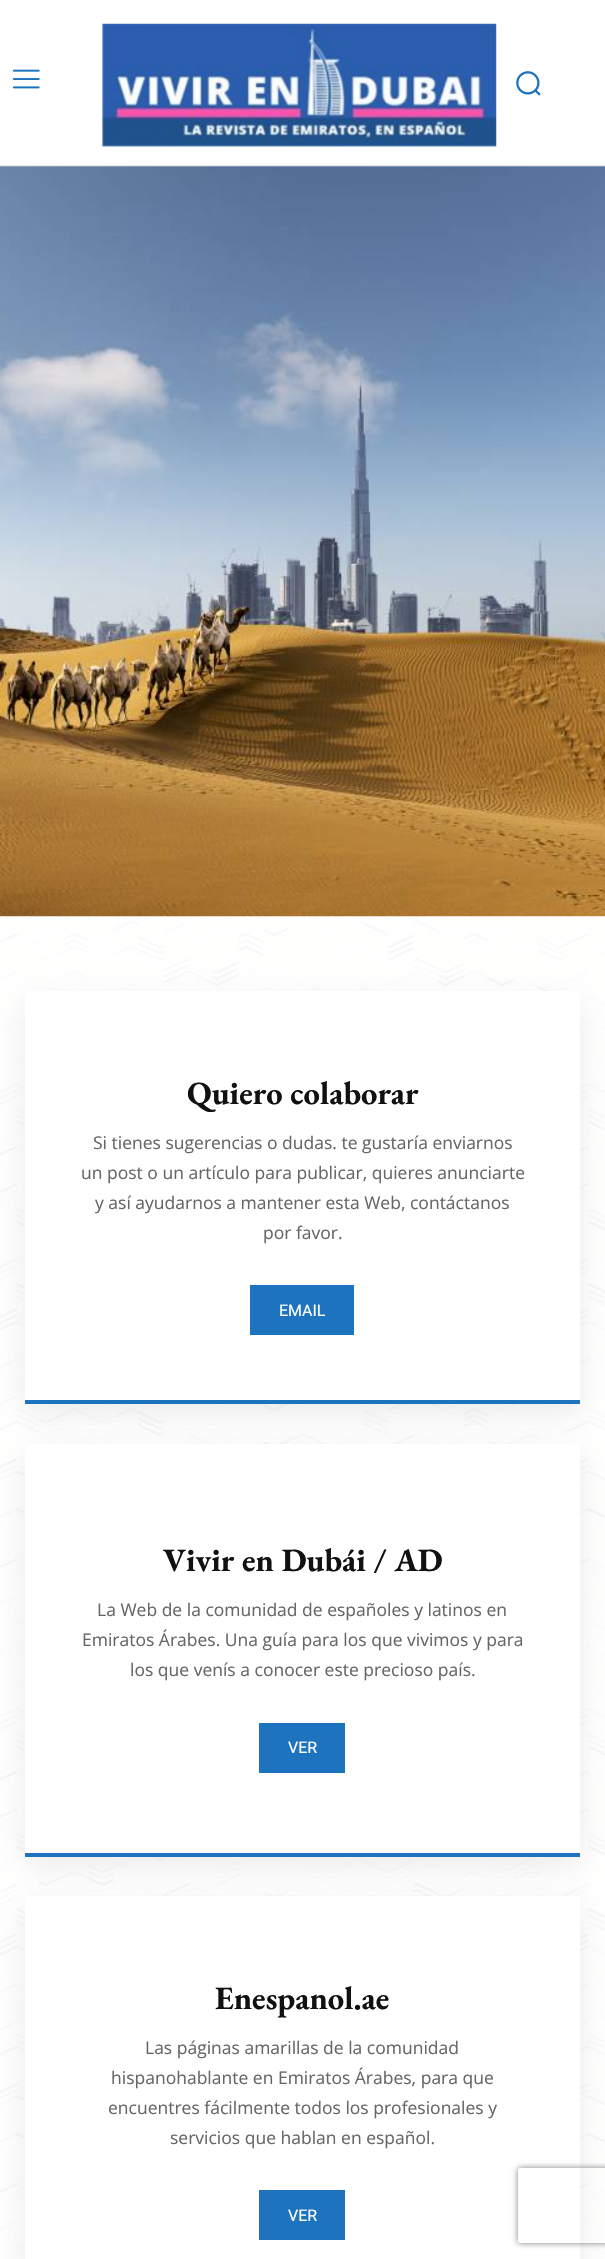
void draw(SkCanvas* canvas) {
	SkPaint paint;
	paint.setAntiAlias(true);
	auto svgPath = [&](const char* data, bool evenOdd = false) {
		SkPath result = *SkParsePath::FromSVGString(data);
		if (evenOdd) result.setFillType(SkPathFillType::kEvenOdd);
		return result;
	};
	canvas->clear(0xffffffff);
	paint.setColor(0xffeaeaea);
	canvas->drawRect(SkRect::MakeXYWH(0, 165, 605, 1), paint);
	canvas->drawImageRect(SkImages::DeferredFromEncodedData(SkData::MakeFromFileName("img1.png")), SkRect::MakeXYWH(12, 69, 28, 20), SkSamplingOptions());
	canvas->drawImageRect(SkImages::DeferredFromEncodedData(SkData::MakeFromFileName("img2.png")), SkRect::MakeXYWH(102, 23, 395, 124), SkSamplingOptions());
	canvas->drawImageRect(SkImages::DeferredFromEncodedData(SkData::MakeFromFileName("img3.png")), SkRect::MakeXYWH(516, 71, 25, 25), SkSamplingOptions());
	canvas->drawImageRect(SkImages::DeferredFromEncodedData(SkData::MakeFromFileName("img4.png")), SkRect::MakeXYWH(0, 166, 605, 751), SkSamplingOptions());
	canvas->drawImageRect(SkImages::DeferredFromEncodedData(SkData::MakeFromFileName("img5.png")), SkRect::MakeXYWH(0, 916, 605, 1343), SkSamplingOptions());
	paint.setColor(0x33959da5);
	paint.setMaskFilter(SkMaskFilter::MakeBlur(kNormal_SkBlurStyle, 15));
	canvas->drawRect(SkRect::MakeXYWH(25, 1001, 555, 413), paint);
	paint.setMaskFilter(nullptr);
	paint.setColor(0xffffffff);
	canvas->drawRect(SkRect::MakeXYWH(25, 991, 555, 409), paint);
	SkFont f1(fontMgr->matchFamilyStyle("EB Garamond", SkFontStyle::Bold()), 32.5);
	f1.setSubpixel(true);
	paint.setColor(0xff111111);
	canvas->drawString("Quiero colaborar", 187, 1104, f1, paint);
	SkFont f2(fontMgr->matchFamilyStyle("Open Sans", SkFontStyle::Normal()), 17.5);
	f2.setSubpixel(true);
	paint.setColor(0xff666666);
	canvas->drawString("Si tienes sugerencias o dudas. te gustaría enviarnos", 93, 1149, f2, paint);
	canvas->drawString("un post o un artículo para publicar, quieres anunciarte", 81, 1179, f2, paint);
	canvas->drawString("y así ayudarnos a mantener esta Web, contáctanos", 95, 1209, f2, paint);
	canvas->drawString("por favor.", 263, 1239, f2, paint);
	paint.setColor(0xff1e73be);
	canvas->drawRect(SkRect::MakeXYWH(250, 1285, 104, 50), paint);
	SkFont f3(fontMgr->matchFamilyStyle("Roboto", SkFontStyle::Normal()), 16);
	f3.setSubpixel(true);
	paint.setColor(0xffffffff);
	canvas->drawString("EMAIL", 279, 1316, f3, paint);
	paint.setColor(0xff1e73be);
	canvas->drawRect(SkRect::MakeXYWH(25, 1400, 555, 4), paint);
	paint.setColor(0x33959da5);
	paint.setMaskFilter(SkMaskFilter::MakeBlur(kNormal_SkBlurStyle, 15));
	canvas->drawRect(SkRect::MakeXYWH(25, 1454, 555, 412), paint);
	paint.setMaskFilter(nullptr);
	paint.setColor(0xffffffff);
	canvas->drawRect(SkRect::MakeXYWH(25, 1444, 555, 409), paint);
	paint.setColor(0xff111111);
	canvas->drawString("Vivir en Dubái / AD", 163, 1571, f1, paint);
	paint.setColor(0xff666666);
	canvas->drawString("La Web de la comunidad de españoles y latinos en", 97, 1616, f2, paint);
	canvas->drawString("Emiratos Árabes. Una guía para los que vivimos y para", 82, 1646, f2, paint);
	canvas->drawString("los que venís a conocer este precioso país.", 130, 1676, f2, paint);
	paint.setColor(0xff1e73be);
	canvas->drawRect(SkRect::MakeXYWH(259, 1723, 86, 50), paint);
	paint.setColor(0xffffffff);
	canvas->drawString("VER", 288, 1753, f3, paint);
	paint.setColor(0xff1e73be);
	canvas->drawRect(SkRect::MakeXYWH(25, 1853, 555, 4), paint);
	paint.setColor(0x33959da5);
	paint.setMaskFilter(SkMaskFilter::MakeBlur(kNormal_SkBlurStyle, 15));
	canvas->drawRect(SkRect::MakeXYWH(25, 1906, 555, 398), paint);
	paint.setMaskFilter(nullptr);
	paint.setColor(0xffffffff);
	canvas->drawRect(SkRect::MakeXYWH(25, 1896, 555, 363), paint);
	paint.setColor(0xff111111);
	canvas->drawString("Enespanol.ae", 215, 2009, f1, paint);
	paint.setColor(0xff666666);
	canvas->drawString("Las páginas amarillas de la comunidad", 145, 2054, f2, paint);
	canvas->drawString("hispanohablante en Emiratos Árabes, para que", 111, 2084, f2, paint);
	canvas->drawString("encuentres fácilmente todos los profesionales y", 108, 2114, f2, paint);
	canvas->drawString("servicios que hablan en español.", 170, 2144, f2, paint);
	paint.setColor(0xff1e73be);
	canvas->drawRect(SkRect::MakeXYWH(259, 2190, 86, 50), paint);
	paint.setColor(0xffffffff);
	canvas->drawString("VER", 288, 2221, f3, paint);
	canvas->save();
	canvas->clipPath(svgPath("M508 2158H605V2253H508ZM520.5 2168H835.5C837 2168 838 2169 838 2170.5V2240.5C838 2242 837 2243 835.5 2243H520.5C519 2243 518 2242 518 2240.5V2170.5C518 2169 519 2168 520.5 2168Z", true), true);
	paint.setColor(0xff808080);
	paint.setMaskFilter(SkMaskFilter::MakeBlur(kNormal_SkBlurStyle, 3));
	canvas->drawRoundRect(SkRect::MakeXYWH(518, 2168, 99, 75), 2.5, 2.5, paint);
	paint.setMaskFilter(nullptr);
	canvas->restore();
}
